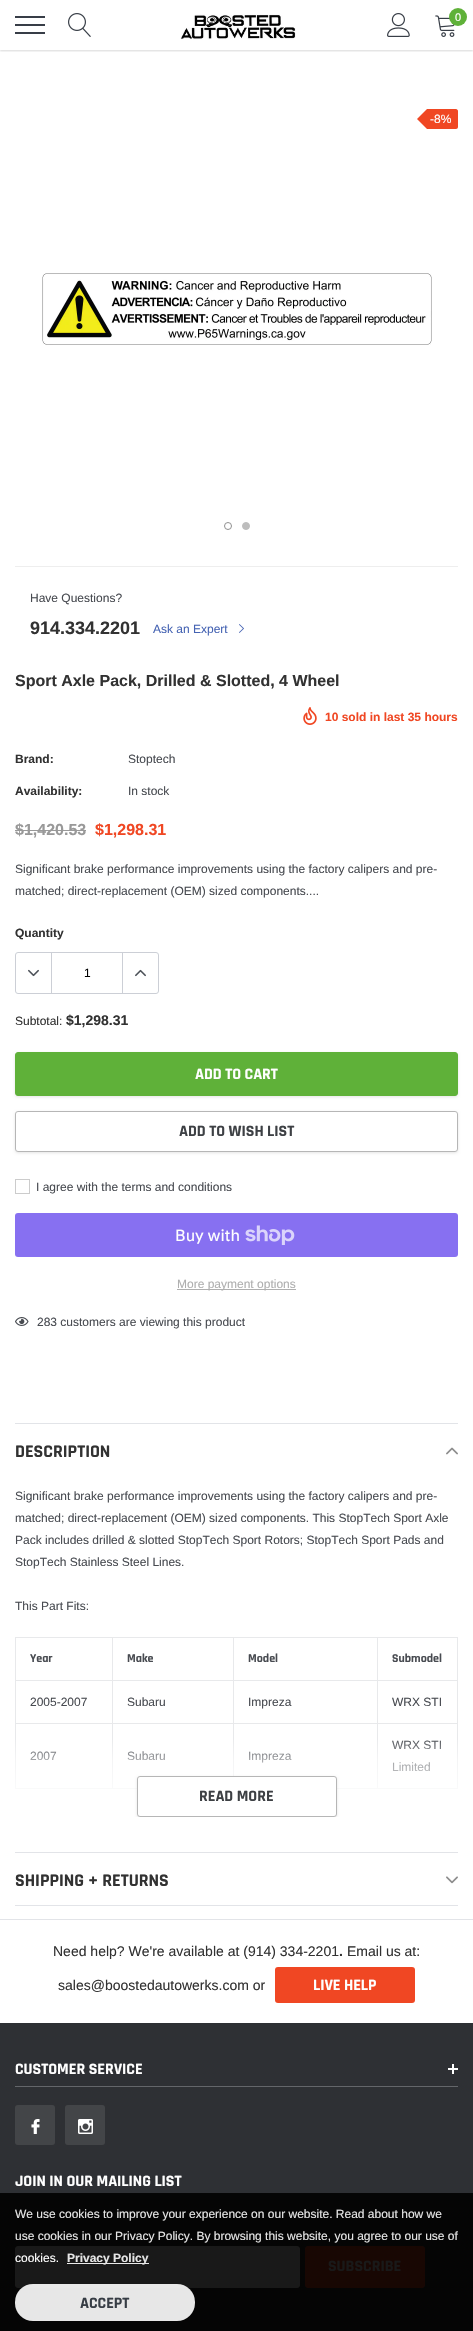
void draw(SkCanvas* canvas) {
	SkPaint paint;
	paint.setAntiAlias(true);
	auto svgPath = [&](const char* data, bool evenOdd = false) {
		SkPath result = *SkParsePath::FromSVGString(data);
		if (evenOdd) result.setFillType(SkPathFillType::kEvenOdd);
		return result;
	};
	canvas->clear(0xffffffff);
	canvas->save();
	canvas->clipRect(SkRect::MakeXYWH(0, 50, 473, 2));
	paint.setColor(0x26000000);
	paint.setMaskFilter(SkMaskFilter::MakeBlur(kNormal_SkBlurStyle, 1));
	canvas->drawRect(SkRect::MakeXYWH(0, 1, 473, 50), paint);
	paint.setMaskFilter(nullptr);
	canvas->restore();
	paint.setColor(0xff383e47);
	canvas->drawRect(SkRect::MakeXYWH(15, 24, 30, 2), paint);
	canvas->drawRect(SkRect::MakeXYWH(15, 16, 30, 2), paint);
	canvas->drawRect(SkRect::MakeXYWH(15, 32, 30, 2), paint);
	canvas->drawImageRect(SkImages::DeferredFromEncodedData(SkData::MakeFromFileName("img1.png")), SkRect::MakeXYWH(68, 13, 23, 24), SkSamplingOptions());
	canvas->drawImageRect(SkImages::DeferredFromEncodedData(SkData::MakeFromFileName("img2.png")), SkRect::MakeXYWH(180, 14, 116, 26), SkSamplingOptions());
	canvas->drawImageRect(SkImages::DeferredFromEncodedData(SkData::MakeFromFileName("img3.png")), SkRect::MakeXYWH(387, 13, 23, 24), SkSamplingOptions());
	canvas->drawImageRect(SkImages::DeferredFromEncodedData(SkData::MakeFromFileName("img4.png")), SkRect::MakeXYWH(435, 15, 20, 22), SkSamplingOptions());
	paint.setColor(0xff5fb139);
	canvas->drawCircle(458, 17, 9, paint);
	SkFont f1(fontMgr->matchFamilyStyle("Arimo", SkFontStyle::Normal()), 11);
	f1.setSubpixel(true);
	paint.setColor(0xffffffff);
	canvas->drawString("0", 455, 21, f1, paint);
	paint.setColor(0xfff04723);
	canvas->drawPath(svgPath("M427 109H456C457 109 458 110 458 111V127C458 128 457 129 456 129H427Z"), paint);
	canvas->drawPath(svgPath("M427 109V129L417 119Z"), paint);
	SkFont f2(fontMgr->matchFamilyStyle("Arimo", SkFontStyle::Normal()), 12);
	f2.setSubpixel(true);
	paint.setColor(0xffffffff);
	canvas->drawString("-8%", 430, 123, f2, paint);
	canvas->drawImageRect(SkImages::DeferredFromEncodedData(SkData::MakeFromFileName("img5.png")), SkRect::MakeXYWH(42, 273, 390, 72), SkSamplingOptions());
	paint.setStroke(true);
	paint.setStrokeWidth(1);
	paint.setColor(0xff8f8f8f);
	canvas->drawCircle(228, 526, 3.5, paint);
	paint.setStroke(false);
	paint.setColor(0xffbdbdbd);
	canvas->drawCircle(246, 526, 3.5, paint);
	paint.setStroke(true);
	canvas->drawCircle(246, 526, 3.5, paint);
	paint.setStroke(false);
	paint.setColor(0xffeeeeee);
	canvas->drawRect(SkRect::MakeXYWH(15, 566, 443, 1), paint);
	paint.setColor(0xff484b51);
	canvas->drawString("Have Questions?", 30, 602, f2, paint);
	SkFont f3(fontMgr->matchFamilyStyle("Arimo", SkFontStyle::Bold()), 18);
	f3.setSubpixel(true);
	paint.setColor(0xff323232);
	canvas->drawString("914.334.2201", 30, 634, f3, paint);
	paint.setColor(0xff4563b3);
	canvas->drawString("Ask an Expert", 153, 633, f2, paint);
	canvas->drawImageRect(SkImages::DeferredFromEncodedData(SkData::MakeFromFileName("img6.png")), SkRect::MakeXYWH(239, 624, 5, 9), SkSamplingOptions());
	SkFont f4(fontMgr->matchFamilyStyle("Arimo", SkFontStyle::Bold()), 16);
	f4.setSubpixel(true);
	paint.setColor(0xff323232);
	canvas->drawString("Sport Axle Pack, Drilled & Slotted, 4 Wheel", 15, 686, f4, paint);
	canvas->drawImageRect(SkImages::DeferredFromEncodedData(SkData::MakeFromFileName("img7.png")), SkRect::MakeXYWH(303, 707, 14, 18), SkSamplingOptions());
	SkFont f5(fontMgr->matchFamilyStyle("Arimo", SkFontStyle::Bold()), 12);
	f5.setSubpixel(true);
	paint.setColor(0xfff04723);
	canvas->drawString("10 sold in last 35 hours", 325, 721, f5, paint);
	paint.setColor(0xff323232);
	canvas->drawString("Brand:", 15, 763, f5, paint);
	paint.setColor(0xff484b51);
	canvas->drawString("Stoptech", 128, 763, f2, paint);
	paint.setColor(0xff323232);
	canvas->drawString("Availability:", 15, 795, f5, paint);
	paint.setColor(0xff484b51);
	canvas->drawString("In stock", 128, 795, f2, paint);
	paint.setColor(0xff999999);
	canvas->drawString("$1,420.53", 15, 835, f4, paint);
	canvas->drawRect(SkRect::MakeXYWH(15, 830, 71, 1), paint);
	paint.setColor(0xfff04723);
	canvas->drawString("$1,298.31", 95, 835, f4, paint);
	paint.setColor(0xff484b51);
	canvas->drawString("Significant brake performance improvements using the factory calipers and pre-", 15, 873, f2, paint);
	canvas->drawString("matched; direct-replacement (OEM) sized components....", 15, 895, f2, paint);
	paint.setColor(0xff323232);
	canvas->drawString("Quantity", 15, 937, f5, paint);
	paint.setStroke(true);
	paint.setColor(0xffcccfd6);
	canvas->drawRoundRect(SkRect::MakeXYWH(15.5, 952.5, 143, 41), 2.5, 2.5, paint);
	paint.setStroke(false);
	canvas->drawRect(SkRect::MakeXYWH(51, 953, 1, 40), paint);
	canvas->drawImageRect(SkImages::DeferredFromEncodedData(SkData::MakeFromFileName("img8.png")), SkRect::MakeXYWH(28, 969, 11, 8), SkSamplingOptions());
	paint.setColor(0xff000000);
	canvas->drawString("1", 84, 977, f2, paint);
	paint.setColor(0xffcccfd6);
	canvas->drawRect(SkRect::MakeXYWH(122, 953, 1, 40), paint);
	canvas->drawImageRect(SkImages::DeferredFromEncodedData(SkData::MakeFromFileName("img9.png")), SkRect::MakeXYWH(135, 969, 11, 8), SkSamplingOptions());
	paint.setColor(0xff323232);
	canvas->drawString("Subtotal:", 15, 1025, f2, paint);
	SkFont f6(fontMgr->matchFamilyStyle("Arimo", SkFontStyle::Bold()), 14);
	f6.setSubpixel(true);
	canvas->drawString("$1,298.31", 66, 1025, f6, paint);
	paint.setColor(0x1a000000);
	paint.setMaskFilter(SkMaskFilter::MakeBlur(kNormal_SkBlurStyle, 1.5));
	canvas->drawRoundRect(SkRect::MakeXYWH(15, 1053, 443, 44), 3, 3, paint);
	paint.setMaskFilter(nullptr);
	paint.setColor(0xff5fb139);
	canvas->drawRoundRect(SkRect::MakeXYWH(15.5, 1052.5, 442, 43), 2.5, 2.5, paint);
	paint.setStroke(true);
	canvas->drawRoundRect(SkRect::MakeXYWH(15.5, 1052.5, 442, 43), 2.5, 2.5, paint);
	SkFont f7(fontMgr->matchFamilyStyle("Rajdhani", SkFontStyle::Bold()), 16);
	f7.setSubpixel(true);
	paint.setStroke(false);
	paint.setColor(0xffffffff);
	canvas->drawString("ADD TO CART", 195, 1079, f7, paint);
	canvas->save();
	canvas->clipPath(svgPath("M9 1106H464V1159H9ZM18 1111H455C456.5 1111 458 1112.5 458 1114V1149C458 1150.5 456.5 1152 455 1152H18C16.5 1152 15 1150.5 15 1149V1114C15 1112.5 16.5 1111 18 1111Z", true), true);
	paint.setColor(0x1a000000);
	paint.setMaskFilter(SkMaskFilter::MakeBlur(kNormal_SkBlurStyle, 1.5));
	canvas->drawRoundRect(SkRect::MakeXYWH(15, 1112, 443, 41), 3, 3, paint);
	paint.setMaskFilter(nullptr);
	canvas->restore();
	paint.setStroke(true);
	paint.setColor(0xffb6b6b6);
	canvas->drawRoundRect(SkRect::MakeXYWH(15.5, 1111.5, 442, 40), 2.5, 2.5, paint);
	paint.setStroke(false);
	paint.setColor(0xff3d4044);
	canvas->drawString("ADD TO WISH LIST", 179, 1136, f7, paint);
	paint.setStroke(true);
	paint.setColor(0xffcccccc);
	canvas->drawRect(SkRect::MakeXYWH(15.5, 1179.5, 14, 14), paint);
	paint.setStroke(false);
	paint.setColor(0xff484b51);
	canvas->drawString("I agree with the terms and conditions", 36, 1191, f2, paint);
	paint.setColor(0xff8770f1);
	canvas->drawRoundRect(SkRect::MakeXYWH(15, 1213, 443, 44), 3, 3, paint);
	SkFont f8(fontMgr->matchFamilyStyle("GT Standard", SkFontStyle::Normal()), 16);
	f8.setSubpixel(true);
	paint.setColor(0xffffffff);
	canvas->drawString("Buy with", 175, 1241, f8, paint);
	canvas->drawImageRect(SkImages::DeferredFromEncodedData(SkData::MakeFromFileName("img10.png")), SkRect::MakeXYWH(245, 1225, 50, 20), SkSamplingOptions());
	paint.setColor(0xffafafaf);
	canvas->drawRect(SkRect::MakeXYWH(177, 1289, 119, 1), paint);
	canvas->drawString("More payment options", 177, 1288, f2, paint);
	canvas->drawImageRect(SkImages::DeferredFromEncodedData(SkData::MakeFromFileName("img11.png")), SkRect::MakeXYWH(15, 1317, 14, 9), SkSamplingOptions());
	paint.setColor(0xff484b51);
	canvas->drawString("283 customers are viewing this product", 37, 1326, f2, paint);
	paint.setColor(0xffe2e4e8);
	canvas->drawRect(SkRect::MakeXYWH(15, 1905, 443, 1), paint);
	canvas->drawRect(SkRect::MakeXYWH(15, 1423, 443, 1), paint);
	SkFont f9(fontMgr->matchFamilyStyle("Rajdhani", SkFontStyle::Bold()), 18);
	f9.setSubpixel(true);
	paint.setColor(0xff323232);
	canvas->drawString("DESCRIPTION", 15, 1457, f9, paint);
	canvas->drawImageRect(SkImages::DeferredFromEncodedData(SkData::MakeFromFileName("img12.png")), SkRect::MakeXYWH(446, 1447, 12, 8), SkSamplingOptions());
	paint.setColor(0xff484b51);
	canvas->drawString("Significant brake performance improvements using the factory calipers and pre-", 15, 1500, f2, paint);
	canvas->drawString("matched; direct-replacement (OEM) sized components. This StopTech Sport Axle", 15, 1522, f2, paint);
	canvas->drawString("Pack includes drilled & slotted StopTech Sport Rotors; StopTech Sport Pads and", 15, 1544, f2, paint);
	canvas->drawString("StopTech Stainless Steel Lines.", 15, 1566, f2, paint);
	canvas->drawString("This Part Fits:", 15, 1610, f2, paint);
	paint.setColor(0xffe8e9eb);
	canvas->drawRect(SkRect::MakeXYWH(377, 1637, 81, 1), paint);
	canvas->drawRect(SkRect::MakeXYWH(377, 1680, 81, 1), paint);
	canvas->drawRect(SkRect::MakeXYWH(377, 1723, 81, 1), paint);
	canvas->drawRect(SkRect::MakeXYWH(457, 1723, 1, 66), paint);
	canvas->drawRect(SkRect::MakeXYWH(377, 1788, 81, 1), paint);
	canvas->drawRect(SkRect::MakeXYWH(377, 1723, 1, 66), paint);
	canvas->drawRect(SkRect::MakeXYWH(233, 1723, 145, 1), paint);
	canvas->drawRect(SkRect::MakeXYWH(377, 1680, 1, 44), paint);
	canvas->drawRect(SkRect::MakeXYWH(233, 1680, 145, 1), paint);
	canvas->drawRect(SkRect::MakeXYWH(377, 1637, 1, 44), paint);
	canvas->drawRect(SkRect::MakeXYWH(233, 1637, 145, 1), paint);
	canvas->drawRect(SkRect::MakeXYWH(233, 1723, 1, 53), paint);
	canvas->drawRect(SkRect::MakeXYWH(112, 1723, 122, 1), paint);
	canvas->drawRect(SkRect::MakeXYWH(233, 1680, 1, 44), paint);
	canvas->drawRect(SkRect::MakeXYWH(112, 1680, 122, 1), paint);
	canvas->drawRect(SkRect::MakeXYWH(233, 1637, 1, 44), paint);
	canvas->drawRect(SkRect::MakeXYWH(112, 1637, 122, 1), paint);
	canvas->drawRect(SkRect::MakeXYWH(112, 1788, 25, 1), paint);
	canvas->drawRect(SkRect::MakeXYWH(112, 1723, 1, 66), paint);
	canvas->drawRect(SkRect::MakeXYWH(15, 1723, 98, 1), paint);
	canvas->drawRect(SkRect::MakeXYWH(112, 1680, 1, 44), paint);
	canvas->drawRect(SkRect::MakeXYWH(15, 1680, 98, 1), paint);
	canvas->drawRect(SkRect::MakeXYWH(112, 1637, 1, 44), paint);
	canvas->drawRect(SkRect::MakeXYWH(15, 1637, 98, 1), paint);
	canvas->drawRect(SkRect::MakeXYWH(15, 1788, 98, 1), paint);
	canvas->drawRect(SkRect::MakeXYWH(15, 1723, 1, 66), paint);
	canvas->drawRect(SkRect::MakeXYWH(15, 1680, 1, 44), paint);
	canvas->drawRect(SkRect::MakeXYWH(15, 1637, 1, 44), paint);
	SkFont f10(fontMgr->matchFamilyStyle("Rajdhani", SkFontStyle::Bold()), 12);
	f10.setSubpixel(true);
	paint.setColor(0xff484b51);
	canvas->drawString("Year", 30, 1662, f10, paint);
	canvas->drawString("Make", 127, 1662, f10, paint);
	canvas->drawString("Model", 248, 1662, f10, paint);
	paint.setColor(0xffe8e9eb);
	canvas->drawRect(SkRect::MakeXYWH(457, 1680, 1, 44), paint);
	canvas->drawRect(SkRect::MakeXYWH(457, 1637, 1, 44), paint);
	paint.setColor(0xff484b51);
	canvas->drawString("Submodel", 392, 1662, f10, paint);
	canvas->drawString("2005-2007", 30, 1706, f2, paint);
	canvas->drawString("Subaru", 127, 1706, f2, paint);
	canvas->drawString("Impreza", 248, 1706, f2, paint);
	canvas->drawString("WRX STI", 392, 1706, f2, paint);
	canvas->drawString("2007", 30, 1760, f2, paint);
	canvas->drawString("Subaru", 127, 1760, f2, paint);
	paint.setColor(0xffe8e9eb);
	canvas->drawRect(SkRect::MakeXYWH(337, 1788, 41, 1), paint);
	paint.setColor(0xff484b51);
	canvas->drawString("Impreza", 248, 1760, f2, paint);
	canvas->drawString("WRX STI", 392, 1749, f2, paint);
	canvas->drawString("Limited", 392, 1771, f2, paint);
	{
		const SkColor colors[] = {0x00ffffff, 0x80ffffff, 0xffffffff};
		const float stops[] = {0, 0.3, 1};
		const SkPoint ends[] = {{237, 1736}, {237, 1817}};
		paint.setShader(SkGradientShader::MakeLinear(ends, colors, stops, 3, SkTileMode::kClamp));
		paint.setAlpha(255);
	}
	canvas->drawRect(SkRect::MakeXYWH(15, 1740, 443, 49), paint);
	canvas->save();
	canvas->clipRect(SkRect::MakeXYWH(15, 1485, 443, 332));
	paint.setShader(nullptr);
	paint.setColor(0x1a000000);
	paint.setMaskFilter(SkMaskFilter::MakeBlur(kNormal_SkBlurStyle, 1.5));
	canvas->drawRoundRect(SkRect::MakeXYWH(137, 1777, 200, 41), 3, 3, paint);
	paint.setMaskFilter(nullptr);
	canvas->restore();
	paint.setColor(0xffffffff);
	canvas->drawRoundRect(SkRect::MakeXYWH(137.5, 1776.5, 199, 40), 2.5, 2.5, paint);
	paint.setStroke(true);
	paint.setColor(0xffb6b6b6);
	canvas->drawRoundRect(SkRect::MakeXYWH(137.5, 1776.5, 199, 40), 2.5, 2.5, paint);
	paint.setStroke(false);
	paint.setColor(0xff3d4044);
	canvas->drawString("READ MORE", 199, 1801, f7, paint);
	paint.setColor(0xffe2e4e8);
	canvas->drawRect(SkRect::MakeXYWH(15, 1852, 443, 1), paint);
	paint.setColor(0xff323232);
	canvas->drawString("SHIPPING + RETURNS", 15, 1886, f9, paint);
	canvas->drawImageRect(SkImages::DeferredFromEncodedData(SkData::MakeFromFileName("img13.png")), SkRect::MakeXYWH(446, 1876, 12, 8), SkSamplingOptions());
	paint.setColor(0xffe2e4e8);
	canvas->drawRect(SkRect::MakeXYWH(0, 1919, 473, 1), paint);
	SkFont f11(fontMgr->matchFamilyStyle("Arimo", SkFontStyle::Normal()), 14);
	f11.setSubpixel(true);
	paint.setColor(0xff323232);
	canvas->drawString("Need help? We're available at (914) 334-2201", 53, 1956, f11, paint);
	canvas->drawString(".", 339, 1956, f6, paint);
	canvas->drawString("Email us at:", 347, 1956, f11, paint);
	canvas->drawString("sales@boostedautowerks.com or", 58, 1990, f11, paint);
	paint.setColor(0xfff04723);
	canvas->drawRoundRect(SkRect::MakeXYWH(275, 1967, 140, 36), 3, 3, paint);
	paint.setColor(0xffffffff);
	canvas->drawString("LIVE HELP", 313, 1990, f7, paint);
	paint.setColor(0xff2e3034);
	canvas->drawRect(SkRect::MakeXYWH(0, 2023, 473, 170), paint);
	paint.setColor(0xff050505);
	canvas->drawRect(SkRect::MakeXYWH(0, 2193, 473, 138), paint);
	paint.setColor(0xff64666a);
	canvas->drawRect(SkRect::MakeXYWH(15, 2086, 443, 1), paint);
	paint.setColor(0xffffffff);
	canvas->drawString("CUSTOMER SERVICE", 15, 2074, f7, paint);
	canvas->drawRect(SkRect::MakeXYWH(452, 2064, 2, 10), paint);
	canvas->drawRect(SkRect::MakeXYWH(448, 2068, 10, 2), paint);
	paint.setColor(0xff434548);
	canvas->drawRoundRect(SkRect::MakeXYWH(15, 2105, 40, 40), 3, 3, paint);
	canvas->drawImageRect(SkImages::DeferredFromEncodedData(SkData::MakeFromFileName("img14.png")), SkRect::MakeXYWH(31, 2119, 9, 15), SkSamplingOptions());
	canvas->drawRoundRect(SkRect::MakeXYWH(65, 2105, 40, 40), 3, 3, paint);
	canvas->drawImageRect(SkImages::DeferredFromEncodedData(SkData::MakeFromFileName("img15.png")), SkRect::MakeXYWH(78, 2119, 15, 15), SkSamplingOptions());
	paint.setColor(0xffffffff);
	canvas->drawString("JOIN IN OUR MAILING LIST", 15, 2186, f7, paint);
	paint.setColor(0xff191919);
	canvas->drawRoundRect(SkRect::MakeXYWH(15.5, 2246.5, 284, 41), 2.5, 2.5, paint);
	paint.setStroke(true);
	canvas->drawRoundRect(SkRect::MakeXYWH(15.5, 2246.5, 284, 41), 2.5, 2.5, paint);
	paint.setStroke(false);
	paint.setColor(0xff180703);
	canvas->drawRoundRect(SkRect::MakeXYWH(305.5, 2246.5, 119, 41), 2.5, 2.5, paint);
	paint.setStroke(true);
	canvas->drawRoundRect(SkRect::MakeXYWH(305.5, 2246.5, 119, 41), 2.5, 2.5, paint);
	paint.setStroke(false);
	paint.setColor(0xff191919);
	canvas->drawString("SUBSCRIBE", 328, 2271, f7, paint);
	paint.setColor(0xffe6e6e6);
	canvas->drawString("We use cookies to improve your experience on our website. Read about how we", 15, 2218, f2, paint);
	canvas->drawString("use cookies in our Privacy Policy. By browsing this website, you agree to our use of", 15, 2240, f2, paint);
	paint.setColor(0xffffffff);
	canvas->drawString("cookies.", 15, 2262, f2, paint);
	paint.setColor(0xe6ffffff);
	canvas->drawRect(SkRect::MakeXYWH(67, 2263, 82, 1), paint);
	paint.setColor(0xffe6e6e6);
	canvas->drawString("Privacy Policy", 67, 2262, f5, paint);
	paint.setColor(0xe6ffffff);
	canvas->drawRoundRect(SkRect::MakeXYWH(15, 2284, 180, 37), 18, 18, paint);
	paint.setColor(0xff373d45);
	canvas->drawString("ACCEPT", 80, 2308, f7, paint);
}
